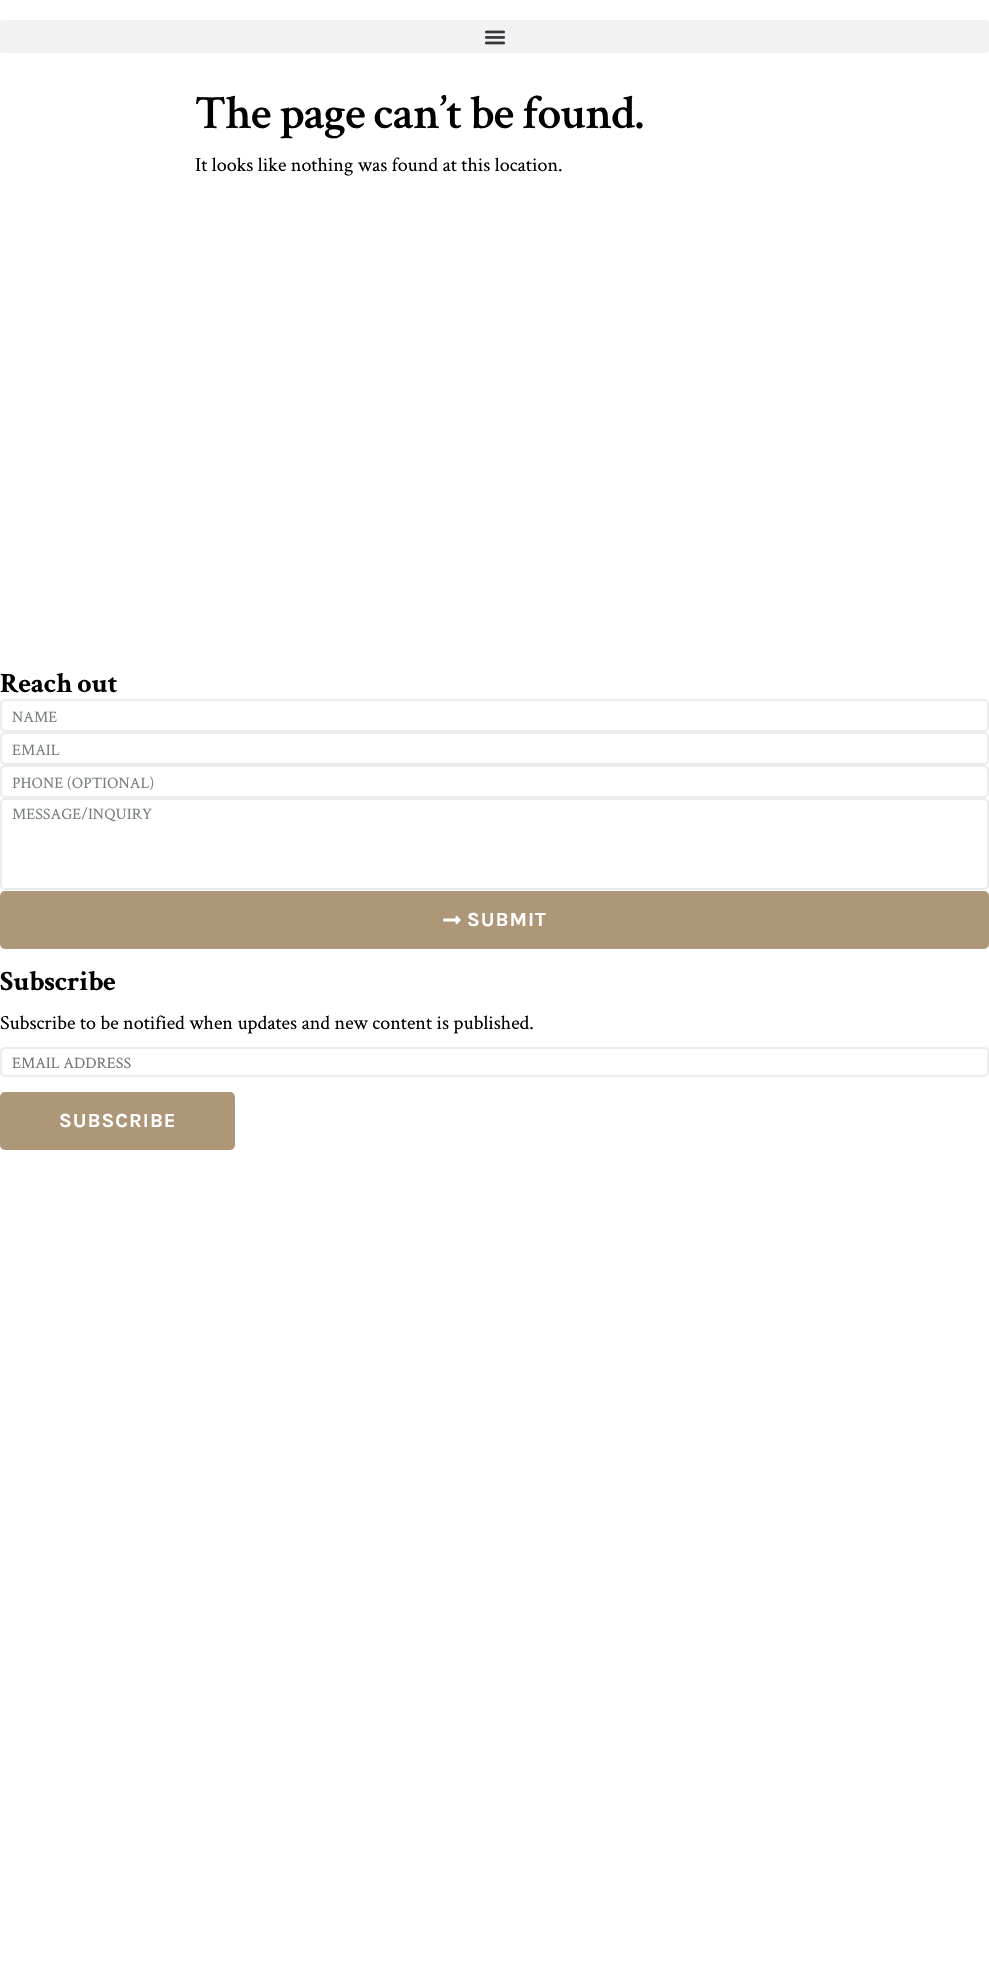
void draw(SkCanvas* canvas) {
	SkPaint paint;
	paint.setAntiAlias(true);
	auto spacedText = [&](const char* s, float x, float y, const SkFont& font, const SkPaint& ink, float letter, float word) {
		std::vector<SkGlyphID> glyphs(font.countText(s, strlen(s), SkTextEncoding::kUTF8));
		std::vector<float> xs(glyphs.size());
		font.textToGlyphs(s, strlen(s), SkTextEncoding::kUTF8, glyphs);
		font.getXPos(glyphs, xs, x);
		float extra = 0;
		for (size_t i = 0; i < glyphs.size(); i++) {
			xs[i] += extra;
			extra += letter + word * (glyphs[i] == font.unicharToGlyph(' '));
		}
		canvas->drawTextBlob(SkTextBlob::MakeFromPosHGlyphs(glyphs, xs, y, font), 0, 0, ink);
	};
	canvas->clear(0xffffffff);
	paint.setColor(0xfff2f2f2);
	canvas->drawRoundRect(SkRect::MakeXYWH(0, 20, 989, 33), 3, 3, paint);
	canvas->drawImageRect(SkImages::DeferredFromEncodedData(SkData::MakeFromFileName("img1.png")), SkRect::MakeXYWH(484, 30, 22, 15), SkSamplingOptions());
	SkFont f1(fontMgr->matchFamilyStyle("Crimson Text", SkFontStyle(600, SkFontStyle::kNormal_Width, SkFontStyle::kUpright_Slant)), 47.75);
	f1.setSubpixel(true);
	paint.setColor(0xff000000);
	spacedText("The page can’t be found.", 195, 128, f1, paint, -0.9, 0);
	SkFont f2(fontMgr->matchFamilyStyle("Crimson Text", SkFontStyle::Normal()), 20);
	f2.setSubpixel(true);
	canvas->drawString("It looks like nothing was found at this location.", 195, 171, f2, paint);
	SkFont f3(fontMgr->matchFamilyStyle("Crimson Text", SkFontStyle::Bold()), 28);
	f3.setSubpixel(true);
	spacedText("Reach out", 0, 692, f3, paint, -0.25, 0);
	paint.setStroke(true);
	paint.setStrokeWidth(2);
	paint.setColor(0xffebeced);
	canvas->drawRoundRect(SkRect::MakeXYWH(1, 700, 987, 31), 4, 4, paint);
	SkFont f4(fontMgr->matchFamilyStyle("Crimson Text", SkFontStyle::Normal()), 16);
	f4.setSubpixel(true);
	paint.setStroke(false);
	paint.setColor(0xff787e80);
	canvas->drawString("NAME", 12, 722, f4, paint);
	paint.setStroke(true);
	paint.setColor(0xffebeced);
	canvas->drawRoundRect(SkRect::MakeXYWH(1, 733, 987, 31), 4, 4, paint);
	paint.setStroke(false);
	paint.setColor(0xff787e80);
	canvas->drawString("EMAIL", 12, 755, f4, paint);
	paint.setStroke(true);
	paint.setColor(0xffebeced);
	canvas->drawRoundRect(SkRect::MakeXYWH(1, 766, 987, 31), 4, 4, paint);
	paint.setStroke(false);
	paint.setColor(0xff787e80);
	canvas->drawString("PHONE (OPTIONAL)", 12, 788, f4, paint);
	paint.setStroke(true);
	paint.setColor(0xffebeced);
	canvas->drawRoundRect(SkRect::MakeXYWH(1, 799, 987, 90), 4, 4, paint);
	paint.setStroke(false);
	paint.setColor(0xff787e80);
	canvas->drawString("MESSAGE/INQUIRY", 12, 819, f4, paint);
	paint.setColor(0xffae9678);
	canvas->drawRoundRect(SkRect::MakeXYWH(0, 891, 989, 58), 5, 5, paint);
	canvas->drawImageRect(SkImages::DeferredFromEncodedData(SkData::MakeFromFileName("img2.png")), SkRect::MakeXYWH(443, 915, 18, 10), SkSamplingOptions());
	SkFont f5(fontMgr->matchFamilyStyle("Karla", SkFontStyle::Bold()), 20);
	f5.setSubpixel(true);
	paint.setColor(0xffffffff);
	spacedText("SUBMIT", 467, 926, f5, paint, 1, 0);
	paint.setColor(0xff000000);
	spacedText("Subscribe", 0, 990, f3, paint, -0.25, 0);
	canvas->drawString("Subscribe to be notified when updates and new content is published.", 0, 1029, f2, paint);
	paint.setStroke(true);
	paint.setColor(0xffebeced);
	canvas->drawRoundRect(SkRect::MakeXYWH(1, 1048, 987, 28), 4, 4, paint);
	paint.setStroke(false);
	paint.setColor(0xff757575);
	canvas->drawString("EMAIL ADDRESS", 12, 1068, f4, paint);
	paint.setColor(0xffae9678);
	canvas->drawRoundRect(SkRect::MakeXYWH(0, 1092, 235, 58), 5, 5, paint);
	paint.setColor(0xffffffff);
	spacedText("SUBSCRIBE", 59, 1127, f5, paint, 1, 0);
}
